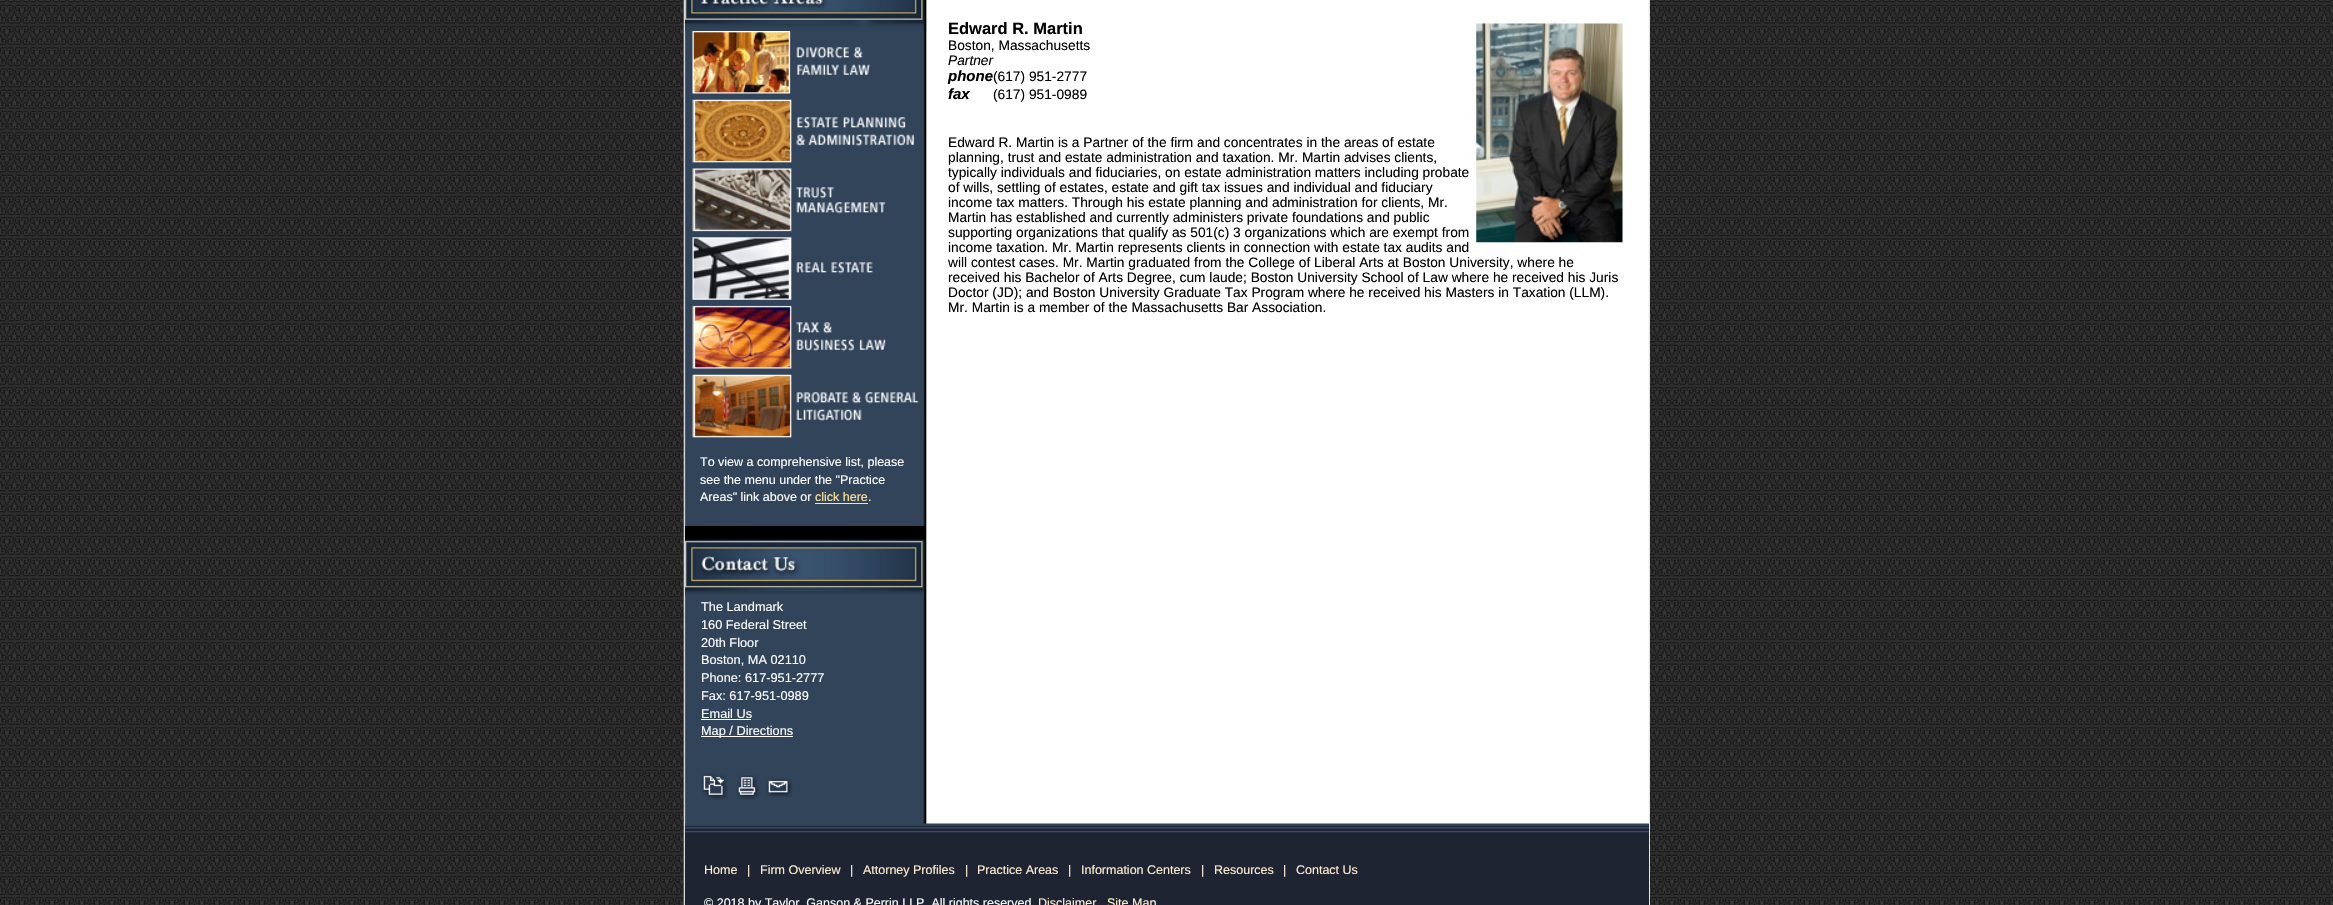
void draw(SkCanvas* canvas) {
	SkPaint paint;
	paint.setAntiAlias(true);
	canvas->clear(0xffffffff);
	canvas->drawImageRect(SkImages::DeferredFromEncodedData(SkData::MakeFromFileName("img1.png")), SkRect::MakeXYWH(0, 0, 2333, 905), SkSamplingOptions());
	canvas->drawImageRect(SkImages::DeferredFromEncodedData(SkData::MakeFromFileName("img2.png")), SkRect::MakeXYWH(683, 0, 967, 905), SkSamplingOptions());
	SkFont f1(fontMgr->matchFamilyStyle("Liberation Sans", SkFontStyle::Bold()), 16.5);
	f1.setSubpixel(true);
	paint.setColor(0xff000000);
	canvas->drawString("Edward R. Martin", 948, 34, f1, paint);
	canvas->drawImageRect(SkImages::DeferredFromEncodedData(SkData::MakeFromFileName("img3.png")), SkRect::MakeXYWH(1476, 23, 147, 220), SkSamplingOptions());
	SkFont f2(fontMgr->matchFamilyStyle("Liberation Sans", SkFontStyle::Normal()), 13.75);
	f2.setSubpixel(true);
	canvas->drawString("Boston, Massachusetts", 948, 50, f2, paint);
	SkFont f3(fontMgr->matchFamilyStyle("Liberation Sans", SkFontStyle::Italic()), 13.75);
	f3.setSubpixel(true);
	canvas->drawString("Partner", 948, 65, f3, paint);
	SkFont f4(fontMgr->matchFamilyStyle("Liberation Sans", SkFontStyle::BoldItalic()), 15);
	f4.setSubpixel(true);
	canvas->drawString("phone", 948, 81, f4, paint);
	canvas->drawString("(617) 951-2777", 993, 81, f2, paint);
	canvas->drawString("fax", 948, 99, f4, paint);
	canvas->drawString("(617) 951-0989", 993, 99, f2, paint);
	canvas->drawString("Edward R. Martin is a Partner of the firm and concentrates in the areas of estate", 948, 147, f2, paint);
	canvas->drawString("planning, trust and estate administration and taxation. Mr. Martin advises clients,", 948, 162, f2, paint);
	canvas->drawString("typically individuals and fiduciaries, on estate administration matters including probate", 948, 177, f2, paint);
	canvas->drawString("of wills, settling of estates, estate and gift tax issues and individual and fiduciary", 948, 192, f2, paint);
	canvas->drawString("income tax matters. Through his estate planning and administration for clients, Mr.", 948, 207, f2, paint);
	canvas->drawString("Martin has established and currently administers private foundations and public", 948, 222, f2, paint);
	canvas->drawString("supporting organizations that qualify as 501(c) 3 organizations which are exempt from", 948, 237, f2, paint);
	canvas->drawString("income taxation. Mr. Martin represents clients in connection with estate tax audits and", 948, 252, f2, paint);
	canvas->drawString("will contest cases. Mr. Martin graduated from the College of Liberal Arts at Boston University, where he", 948, 267, f2, paint);
	canvas->drawString("received his Bachelor of Arts Degree, cum laude; Boston University School of Law where he received his Juris", 948, 282, f2, paint);
	canvas->drawString("Doctor (JD); and Boston University Graduate Tax Program where he received his Masters in Taxation (LLM).", 948, 297, f2, paint);
	canvas->drawString("Mr. Martin is a member of the Massachusetts Bar Association.", 948, 312, f2, paint);
	canvas->drawImageRect(SkImages::DeferredFromEncodedData(SkData::MakeFromFileName("img5.png")), SkRect::MakeXYWH(685, 19, 242, 12), SkSamplingOptions());
	canvas->drawImageRect(SkImages::DeferredFromEncodedData(SkData::MakeFromFileName("img4.png")), SkRect::MakeXYWH(685, 0, 242, 20), SkSamplingOptions());
	canvas->drawImageRect(SkImages::DeferredFromEncodedData(SkData::MakeFromFileName("img6.png")), SkRect::MakeXYWH(692, 31, 232, 65), SkSamplingOptions());
	canvas->drawImageRect(SkImages::DeferredFromEncodedData(SkData::MakeFromFileName("img7.png")), SkRect::MakeXYWH(692, 96, 232, 69), SkSamplingOptions());
	canvas->drawImageRect(SkImages::DeferredFromEncodedData(SkData::MakeFromFileName("img8.png")), SkRect::MakeXYWH(692, 165, 232, 69), SkSamplingOptions());
	canvas->drawImageRect(SkImages::DeferredFromEncodedData(SkData::MakeFromFileName("img9.png")), SkRect::MakeXYWH(692, 233, 232, 69), SkSamplingOptions());
	canvas->drawImageRect(SkImages::DeferredFromEncodedData(SkData::MakeFromFileName("img10.png")), SkRect::MakeXYWH(692, 302, 232, 69), SkSamplingOptions());
	canvas->drawImageRect(SkImages::DeferredFromEncodedData(SkData::MakeFromFileName("img11.png")), SkRect::MakeXYWH(692, 371, 232, 69), SkSamplingOptions());
	SkFont f5(fontMgr->matchFamilyStyle("Liberation Sans", SkFontStyle::Normal()), 12.5);
	f5.setSubpixel(true);
	paint.setColor(0xffffffff);
	canvas->drawString("To view a comprehensive list, please", 700, 466, f5, paint);
	canvas->drawString("see the menu under the \"Practice", 700, 484, f5, paint);
	canvas->drawString("Areas\" link above or", 700, 501, f5, paint);
	paint.setColor(0xffffe397);
	canvas->drawString("click here", 815, 501, f5, paint);
	canvas->drawRect(SkRect::MakeXYWH(815, 503, 53, 1), paint);
	paint.setColor(0xffffffff);
	canvas->drawString(".", 868, 501, f5, paint);
	canvas->drawImageRect(SkImages::DeferredFromEncodedData(SkData::MakeFromFileName("img12.png")), SkRect::MakeXYWH(685, 587, 239, 9), SkSamplingOptions());
	paint.setColor(0xff000000);
	canvas->drawRect(SkRect::MakeXYWH(685, 526, 241, 14), paint);
	canvas->drawImageRect(SkImages::DeferredFromEncodedData(SkData::MakeFromFileName("img13.png")), SkRect::MakeXYWH(685, 539, 239, 49), SkSamplingOptions());
	SkFont f6(fontMgr->matchFamilyStyle("Liberation Sans", SkFontStyle::Normal()), 12.75);
	f6.setSubpixel(true);
	paint.setColor(0xffffffff);
	canvas->drawString("The Landmark", 701, 611, f6, paint);
	canvas->drawString("160 Federal Street", 701, 629, f6, paint);
	canvas->drawString("20th Floor", 701, 647, f6, paint);
	canvas->drawString("Boston, MA 02110", 701, 664, f6, paint);
	canvas->drawString("Phone: 617-951-2777", 701, 682, f6, paint);
	canvas->drawString("Fax: 617-951-0989", 701, 700, f6, paint);
	canvas->drawString("Email Us", 701, 718, f6, paint);
	canvas->drawRect(SkRect::MakeXYWH(701, 719, 50, 1), paint);
	canvas->drawRect(SkRect::MakeXYWH(701, 736, 92, 1), paint);
	canvas->drawString("Map / Directions", 701, 735, f6, paint);
	canvas->drawImageRect(SkImages::DeferredFromEncodedData(SkData::MakeFromFileName("img14.png")), SkRect::MakeXYWH(701, 773, 27, 27), SkSamplingOptions());
	canvas->drawImageRect(SkImages::DeferredFromEncodedData(SkData::MakeFromFileName("img15.png")), SkRect::MakeXYWH(736, 775, 24, 25), SkSamplingOptions());
	canvas->drawImageRect(SkImages::DeferredFromEncodedData(SkData::MakeFromFileName("img16.png")), SkRect::MakeXYWH(766, 778, 27, 19), SkSamplingOptions());
	paint.setColor(0xff1e2432);
	canvas->drawRect(SkRect::MakeXYWH(685, 824, 964, 81), paint);
	canvas->drawImageRect(SkImages::DeferredFromEncodedData(SkData::MakeFromFileName("img17.png")), SkRect::MakeXYWH(685, 823, 964, 10), SkSamplingOptions());
	paint.setColor(0xfffeedd1);
	canvas->drawString("Home", 704, 874, f5, paint);
	canvas->drawString("|", 747, 874, f5, paint);
	canvas->drawString("Firm Overview", 760, 874, f5, paint);
	canvas->drawString("|", 850, 874, f5, paint);
	canvas->drawString("Attorney Profiles", 863, 874, f5, paint);
	canvas->drawString("|", 965, 874, f5, paint);
	canvas->drawString("Practice Areas", 977, 874, f5, paint);
	canvas->drawString("|", 1068, 874, f5, paint);
	canvas->drawString("Information Centers", 1081, 874, f5, paint);
	canvas->drawString("|", 1201, 874, f5, paint);
	canvas->drawString("Resources", 1214, 874, f5, paint);
	canvas->drawString("|", 1283, 874, f5, paint);
	canvas->drawString("Contact Us", 1296, 874, f5, paint);
	paint.setColor(0xffffffff);
	canvas->drawString("© 2018 by Taylor, Ganson & Perrin LLP. All rights reserved", 704, 907, f5, paint);
	paint.setColor(0xfffeedd1);
	canvas->drawString("Disclaimer", 1038, 907, f5, paint);
	canvas->drawString("Site Map", 1107, 907, f5, paint);
}
